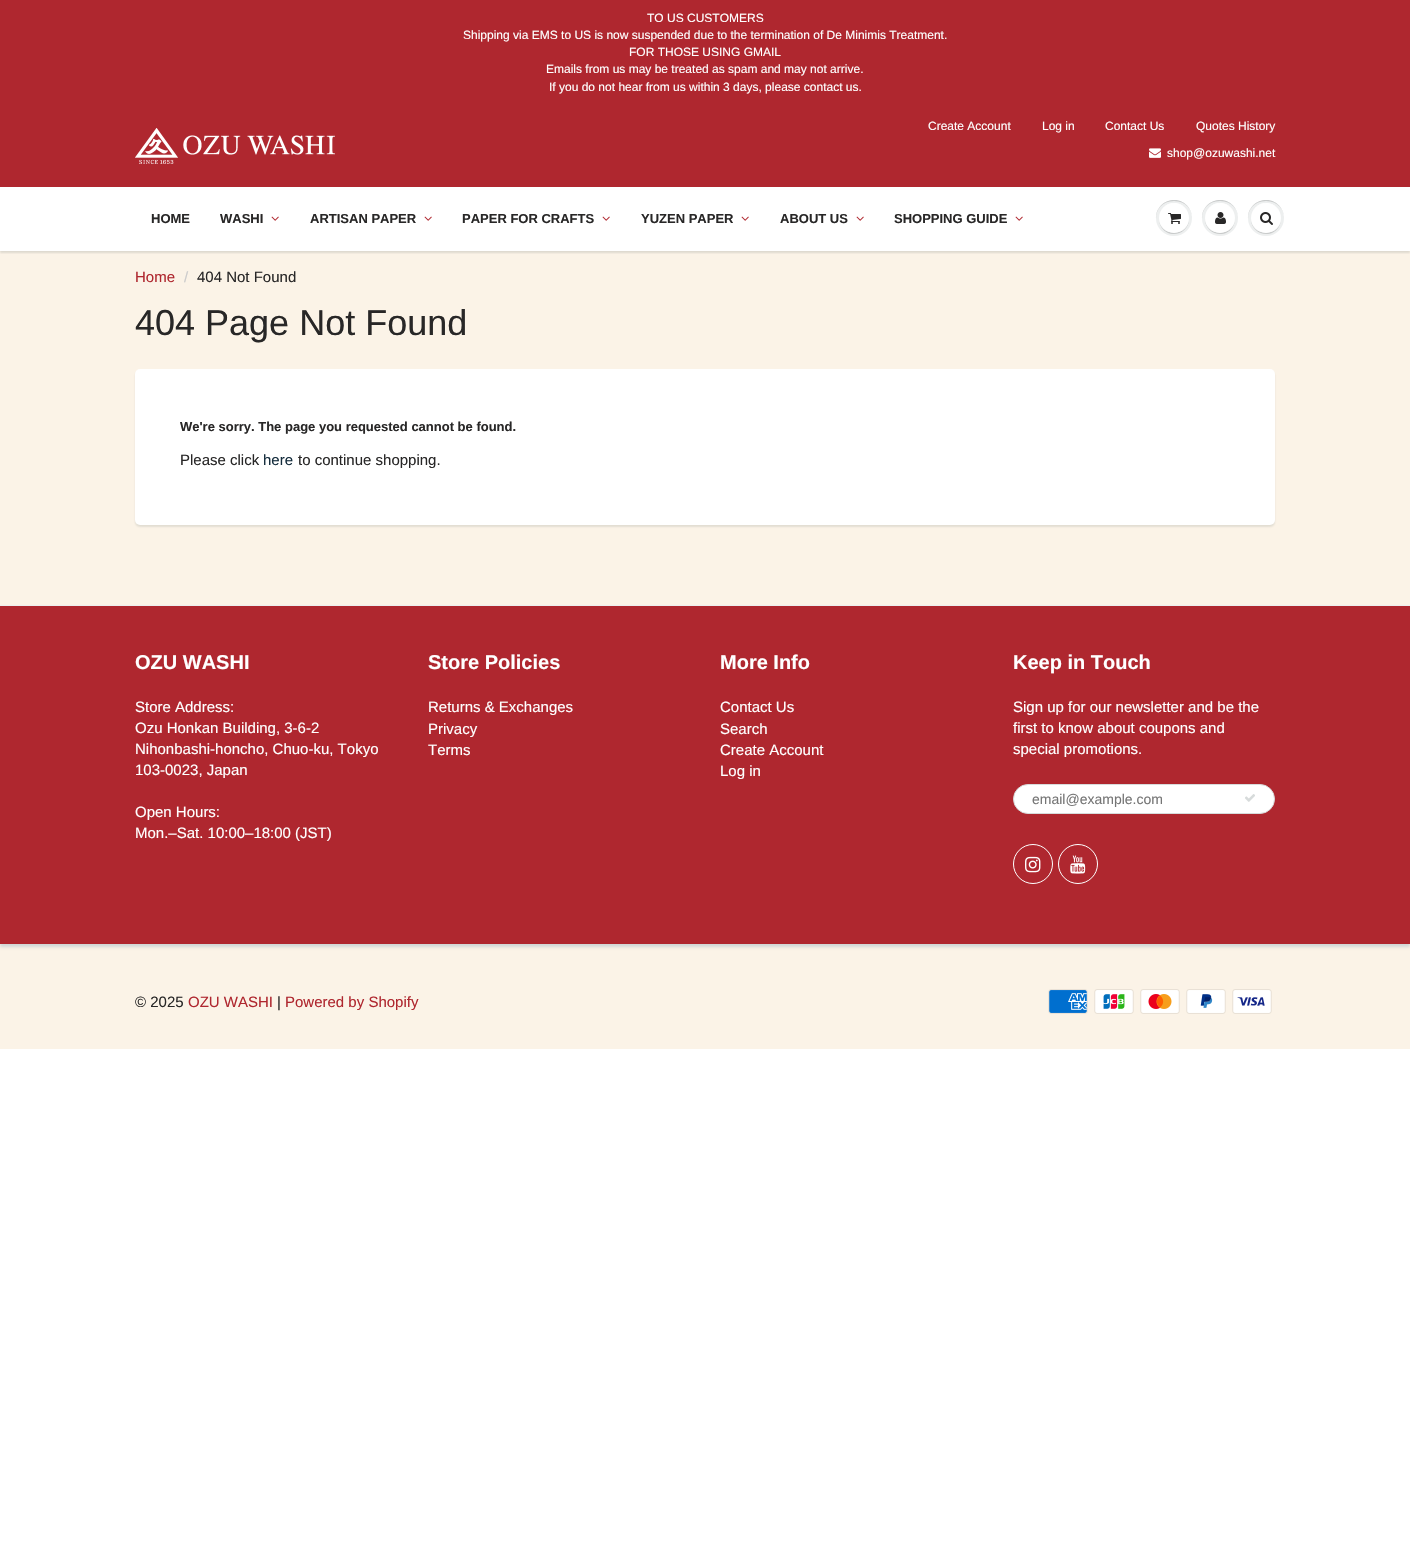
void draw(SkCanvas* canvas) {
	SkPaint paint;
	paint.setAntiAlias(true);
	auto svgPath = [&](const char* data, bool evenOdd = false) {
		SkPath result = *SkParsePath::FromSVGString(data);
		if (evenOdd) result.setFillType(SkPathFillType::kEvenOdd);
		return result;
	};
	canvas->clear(0xffffffff);
	paint.setColor(0xffaf272f);
	canvas->drawRect(SkRect::MakeXYWH(0, 0, 1410, 186), paint);
	SkFont f1(fontMgr->matchFamilyStyle("Arimo", SkFontStyle::Normal()), 12);
	f1.setSubpixel(true);
	paint.setColor(0xffffffff);
	canvas->drawString("TO US CUSTOMERS", 647, 22, f1, paint);
	canvas->drawString("Shipping via EMS to US is now suspended due to the termination of De Minimis Treatment.", 463, 39, f1, paint);
	canvas->drawString("FOR THOSE USING GMAIL", 629, 56, f1, paint);
	canvas->drawString("Emails from us may be treated as spam and may not arrive.", 546, 73, f1, paint);
	canvas->drawString("If you do not hear from us within 3 days, please contact us.", 549, 91, f1, paint);
	canvas->drawImageRect(SkImages::DeferredFromEncodedData(SkData::MakeFromFileName("img1.png")), SkRect::MakeXYWH(135, 128, 200, 36), SkSamplingOptions());
	canvas->drawString("Create Account", 928, 130, f1, paint);
	canvas->drawString("Log in", 1042, 130, f1, paint);
	canvas->drawString("Contact Us", 1105, 130, f1, paint);
	canvas->drawString("Quotes History", 1196, 130, f1, paint);
	canvas->drawImageRect(SkImages::DeferredFromEncodedData(SkData::MakeFromFileName("img2.png")), SkRect::MakeXYWH(1149, 148, 12, 10), SkSamplingOptions());
	canvas->drawString("shop@ozuwashi.net", 1167, 157, f1, paint);
	paint.setColor(0xfffbf3e7);
	canvas->drawRect(SkRect::MakeXYWH(0, 251, 1410, 354), paint);
	canvas->save();
	canvas->clipRect(SkRect::MakeXYWH(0, 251, 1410, 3));
	paint.setColor(0x1f0b191c);
	paint.setMaskFilter(SkMaskFilter::MakeBlur(kNormal_SkBlurStyle, 1));
	canvas->drawRect(SkRect::MakeXYWH(0, 188, 1410, 65), paint);
	paint.setMaskFilter(nullptr);
	canvas->restore();
	paint.setColor(0xffaf272f);
	canvas->drawRect(SkRect::MakeXYWH(0, 186, 1410, 1), paint);
	SkFont f2(fontMgr->matchFamilyStyle("Arimo", SkFontStyle::Bold()), 13);
	f2.setSubpixel(true);
	paint.setColor(0xff282727);
	canvas->drawString("HOME", 151, 223, f2, paint);
	canvas->drawString("WASHI", 220, 223, f2, paint);
	canvas->drawImageRect(SkImages::DeferredFromEncodedData(SkData::MakeFromFileName("img3.png")), SkRect::MakeXYWH(271, 216, 8, 5), SkSamplingOptions());
	canvas->drawString("ARTISAN PAPER", 310, 223, f2, paint);
	canvas->drawImageRect(SkImages::DeferredFromEncodedData(SkData::MakeFromFileName("img3.png")), SkRect::MakeXYWH(424, 216, 8, 5), SkSamplingOptions());
	canvas->drawString("PAPER FOR CRAFTS", 462, 223, f2, paint);
	canvas->drawImageRect(SkImages::DeferredFromEncodedData(SkData::MakeFromFileName("img3.png")), SkRect::MakeXYWH(602, 216, 8, 5), SkSamplingOptions());
	canvas->drawString("YUZEN PAPER", 641, 223, f2, paint);
	canvas->drawImageRect(SkImages::DeferredFromEncodedData(SkData::MakeFromFileName("img3.png")), SkRect::MakeXYWH(741, 216, 8, 5), SkSamplingOptions());
	canvas->drawString("ABOUT US", 780, 223, f2, paint);
	canvas->drawImageRect(SkImages::DeferredFromEncodedData(SkData::MakeFromFileName("img3.png")), SkRect::MakeXYWH(856, 216, 8, 5), SkSamplingOptions());
	canvas->drawString("SHOPPING GUIDE", 894, 223, f2, paint);
	canvas->drawImageRect(SkImages::DeferredFromEncodedData(SkData::MakeFromFileName("img3.png")), SkRect::MakeXYWH(1015, 216, 8, 5), SkSamplingOptions());
	paint.setColor(0xffedefef);
	canvas->drawCircle(1174, 218, 18, paint);
	paint.setColor(0xffc9cbcb);
	canvas->drawPath(svgPath("M1174 201C1186 201 1192 209.5 1192 218.5C1192 215 1191 211 1189 208C1179 193 1155.5 200.5 1156 218.5C1156 209.5 1162 201 1174 201Z"), paint);
	canvas->drawPath(svgPath("M1189 218.5C1188.5 237.5 1159.5 237.5 1159 218.5C1159 221.5 1160 225 1161.5 227.5C1170 240 1189.5 233.5 1189 218.5Z"), paint);
	paint.setColor(0xffffffff);
	canvas->drawCircle(1174, 218, 15, paint);
	canvas->drawPath(svgPath("M1174 204C1184 204 1189 211 1189 218.5C1189 215.5 1188 212 1186.5 209.5C1178 197 1158.5 203.5 1159 218.5C1159 211 1164 204 1174 204Z"), paint);
	canvas->drawImageRect(SkImages::DeferredFromEncodedData(SkData::MakeFromFileName("img4.png")), SkRect::MakeXYWH(1168, 213, 13, 11), SkSamplingOptions());
	paint.setColor(0xffedefef);
	canvas->drawCircle(1220, 218, 18, paint);
	paint.setColor(0xffc9cbcb);
	canvas->drawPath(svgPath("M1220 201C1232 201 1238 209.5 1238 218.5C1238 215 1237 211 1235 208C1225 193 1201.5 200.5 1202 218.5C1202 209.5 1208 201 1220 201Z"), paint);
	canvas->drawPath(svgPath("M1235 218.5C1234.5 237.5 1205.5 237.5 1205 218.5C1204.5 233.5 1224 240 1232.5 227.5C1234 225 1235 221.5 1235 218.5Z"), paint);
	paint.setColor(0xffffffff);
	canvas->drawCircle(1220, 218, 15, paint);
	canvas->drawPath(svgPath("M1220 204C1230 204 1235 211 1235 218.5C1235 215.5 1234 212 1232.5 209.5C1224 197 1204.5 203.5 1205 218.5C1205 211 1210 204 1220 204Z"), paint);
	canvas->drawImageRect(SkImages::DeferredFromEncodedData(SkData::MakeFromFileName("img5.png")), SkRect::MakeXYWH(1215, 212, 11, 12), SkSamplingOptions());
	paint.setColor(0xffedefef);
	canvas->drawCircle(1266, 218, 18, paint);
	paint.setColor(0xffc9cbcb);
	canvas->drawPath(svgPath("M1266 201C1278 201 1284 209.5 1284 218.5C1284 215 1283 211 1281 208C1271 193 1247.5 200.5 1248 218.5C1248 209.5 1254 201 1266 201Z"), paint);
	canvas->drawPath(svgPath("M1281 218.5C1280.5 237.5 1251.5 237.5 1251 218.5C1250.5 233.5 1270 240 1278.5 227.5C1280 225 1281 221.5 1281 218.5Z"), paint);
	paint.setColor(0xffffffff);
	canvas->drawCircle(1266, 218, 15, paint);
	canvas->drawPath(svgPath("M1266 204C1276 204 1281 211 1281 218.5C1281 215.5 1280 212 1278.5 209.5C1270 197 1250.5 203.5 1251 218.5C1251 211 1256 204 1266 204Z"), paint);
	canvas->drawImageRect(SkImages::DeferredFromEncodedData(SkData::MakeFromFileName("img6.png")), SkRect::MakeXYWH(1260, 212, 13, 13), SkSamplingOptions());
	SkFont f3(fontMgr->matchFamilyStyle("Arimo", SkFontStyle::Normal()), 15);
	f3.setSubpixel(true);
	paint.setColor(0xffaf272f);
	canvas->drawString("Home", 135, 282, f3, paint);
	paint.setColor(0xffcccccc);
	canvas->drawString("/", 184, 282, f3, paint);
	paint.setColor(0xff282727);
	canvas->drawString("404 Not Found", 197, 282, f3, paint);
	SkFont f4(fontMgr->matchFamilyStyle("Arimo", SkFontStyle::Normal()), 36);
	f4.setSubpixel(true);
	canvas->drawString("404 Page Not Found", 135, 335, f4, paint);
	paint.setColor(0x1a0b191c);
	paint.setMaskFilter(SkMaskFilter::MakeBlur(kNormal_SkBlurStyle, 1));
	canvas->drawRoundRect(SkRect::MakeXYWH(135, 371, 1140, 156), 5, 5, paint);
	paint.setMaskFilter(nullptr);
	paint.setColor(0xffffffff);
	canvas->drawRoundRect(SkRect::MakeXYWH(135, 369, 1140, 156), 5, 5, paint);
	paint.setColor(0xff282727);
	canvas->drawString("We're sorry. The page you requested cannot be found.", 180, 431, f2, paint);
	canvas->drawString("Please click", 180, 465, f3, paint);
	paint.setColor(0xff142c3c);
	canvas->drawString("here", 263, 465, f3, paint);
	paint.setColor(0xff282727);
	canvas->drawString("to continue shopping.", 298, 465, f3, paint);
	paint.setColor(0xfffbf3e7);
	canvas->drawRect(SkRect::MakeXYWH(0, 944, 1410, 105), paint);
	paint.setColor(0xffd1d7d7);
	paint.setMaskFilter(SkMaskFilter::MakeBlur(kNormal_SkBlurStyle, 1.5));
	canvas->drawRect(SkRect::MakeXYWH(0, 608, 1410, 339), paint);
	paint.setMaskFilter(nullptr);
	paint.setColor(0xffaf272f);
	canvas->drawRect(SkRect::MakeXYWH(0, 606, 1410, 338), paint);
	paint.setColor(0xffecefef);
	canvas->drawRect(SkRect::MakeXYWH(0, 605, 1410, 1), paint);
	SkFont f5(fontMgr->matchFamilyStyle("Arimo", SkFontStyle::Bold()), 20);
	f5.setSubpixel(true);
	paint.setColor(0xffffffff);
	canvas->drawString("OZU WASHI", 135, 669, f5, paint);
	canvas->drawString("Store Address:", 135, 712, f3, paint);
	canvas->drawString("Ozu Honkan Building, 3-6-2", 135, 733, f3, paint);
	canvas->drawString("Nihonbashi-honcho, Chuo-ku, Tokyo", 135, 754, f3, paint);
	canvas->drawString("103-0023, Japan", 135, 775, f3, paint);
	canvas->drawString("Open Hours:", 135, 817, f3, paint);
	canvas->drawString("Mon.–Sat. 10:00–18:00 (JST)", 135, 838, f3, paint);
	canvas->drawString("Store Policies", 428, 669, f5, paint);
	canvas->drawString("Returns & Exchanges", 428, 712, f3, paint);
	canvas->drawString("Privacy", 428, 734, f3, paint);
	canvas->drawString("Terms", 428, 755, f3, paint);
	canvas->drawString("More Info", 720, 669, f5, paint);
	canvas->drawString("Contact Us", 720, 712, f3, paint);
	canvas->drawString("Search", 720, 734, f3, paint);
	canvas->drawString("Create Account", 720, 755, f3, paint);
	canvas->drawString("Log in", 720, 776, f3, paint);
	canvas->drawString("Keep in Touch", 1013, 669, f5, paint);
	canvas->drawString("Sign up for our newsletter and be the", 1013, 712, f3, paint);
	canvas->drawString("first to know about coupons and", 1013, 733, f3, paint);
	canvas->drawString("special promotions.", 1013, 754, f3, paint);
	canvas->drawRoundRect(SkRect::MakeXYWH(1013.5, 784.5, 261, 29), 14.5, 14.5, paint);
	paint.setStroke(true);
	paint.setStrokeWidth(1);
	paint.setColor(0xffd7dbdb);
	canvas->drawRoundRect(SkRect::MakeXYWH(1013.5, 784.5, 261, 29), 14.5, 14.5, paint);
	SkFont f6(fontMgr->matchFamilyStyle("Arimo", SkFontStyle::Normal()), 14);
	f6.setSubpixel(true);
	paint.setStroke(false);
	paint.setColor(0xff757575);
	canvas->drawString("email@example.com", 1032, 804, f6, paint);
	canvas->drawImageRect(SkImages::DeferredFromEncodedData(SkData::MakeFromFileName("img7.png")), SkRect::MakeXYWH(1245, 794, 10, 8), SkSamplingOptions());
	paint.setStroke(true);
	paint.setColor(0xffffffff);
	canvas->drawCircle(1033, 864, 19.5, paint);
	canvas->drawImageRect(SkImages::DeferredFromEncodedData(SkData::MakeFromFileName("img8.png")), SkRect::MakeXYWH(1025, 856, 16, 17), SkSamplingOptions());
	canvas->drawCircle(1078, 864, 19.5, paint);
	canvas->drawImageRect(SkImages::DeferredFromEncodedData(SkData::MakeFromFileName("img9.png")), SkRect::MakeXYWH(1070, 855, 16, 19), SkSamplingOptions());
	paint.setStroke(false);
	paint.setColor(0xff282727);
	canvas->drawString("© 2025", 135, 1007, f3, paint);
	paint.setColor(0xffaf272f);
	canvas->drawString("OZU WASHI", 188, 1007, f3, paint);
	paint.setColor(0xff282727);
	canvas->drawString("|", 277, 1007, f3, paint);
	paint.setColor(0xffaf272f);
	canvas->drawString("Powered by Shopify", 285, 1007, f3, paint);
	canvas->drawImageRect(SkImages::DeferredFromEncodedData(SkData::MakeFromFileName("img10.png")), SkRect::MakeXYWH(1048, 989, 40, 25), SkSamplingOptions());
	canvas->drawImageRect(SkImages::DeferredFromEncodedData(SkData::MakeFromFileName("img11.png")), SkRect::MakeXYWH(1094, 989, 40, 25), SkSamplingOptions());
	canvas->drawImageRect(SkImages::DeferredFromEncodedData(SkData::MakeFromFileName("img12.png")), SkRect::MakeXYWH(1140, 989, 40, 25), SkSamplingOptions());
	canvas->drawImageRect(SkImages::DeferredFromEncodedData(SkData::MakeFromFileName("img13.png")), SkRect::MakeXYWH(1186, 989, 40, 25), SkSamplingOptions());
	canvas->drawImageRect(SkImages::DeferredFromEncodedData(SkData::MakeFromFileName("img14.png")), SkRect::MakeXYWH(1232, 989, 40, 25), SkSamplingOptions());
}
